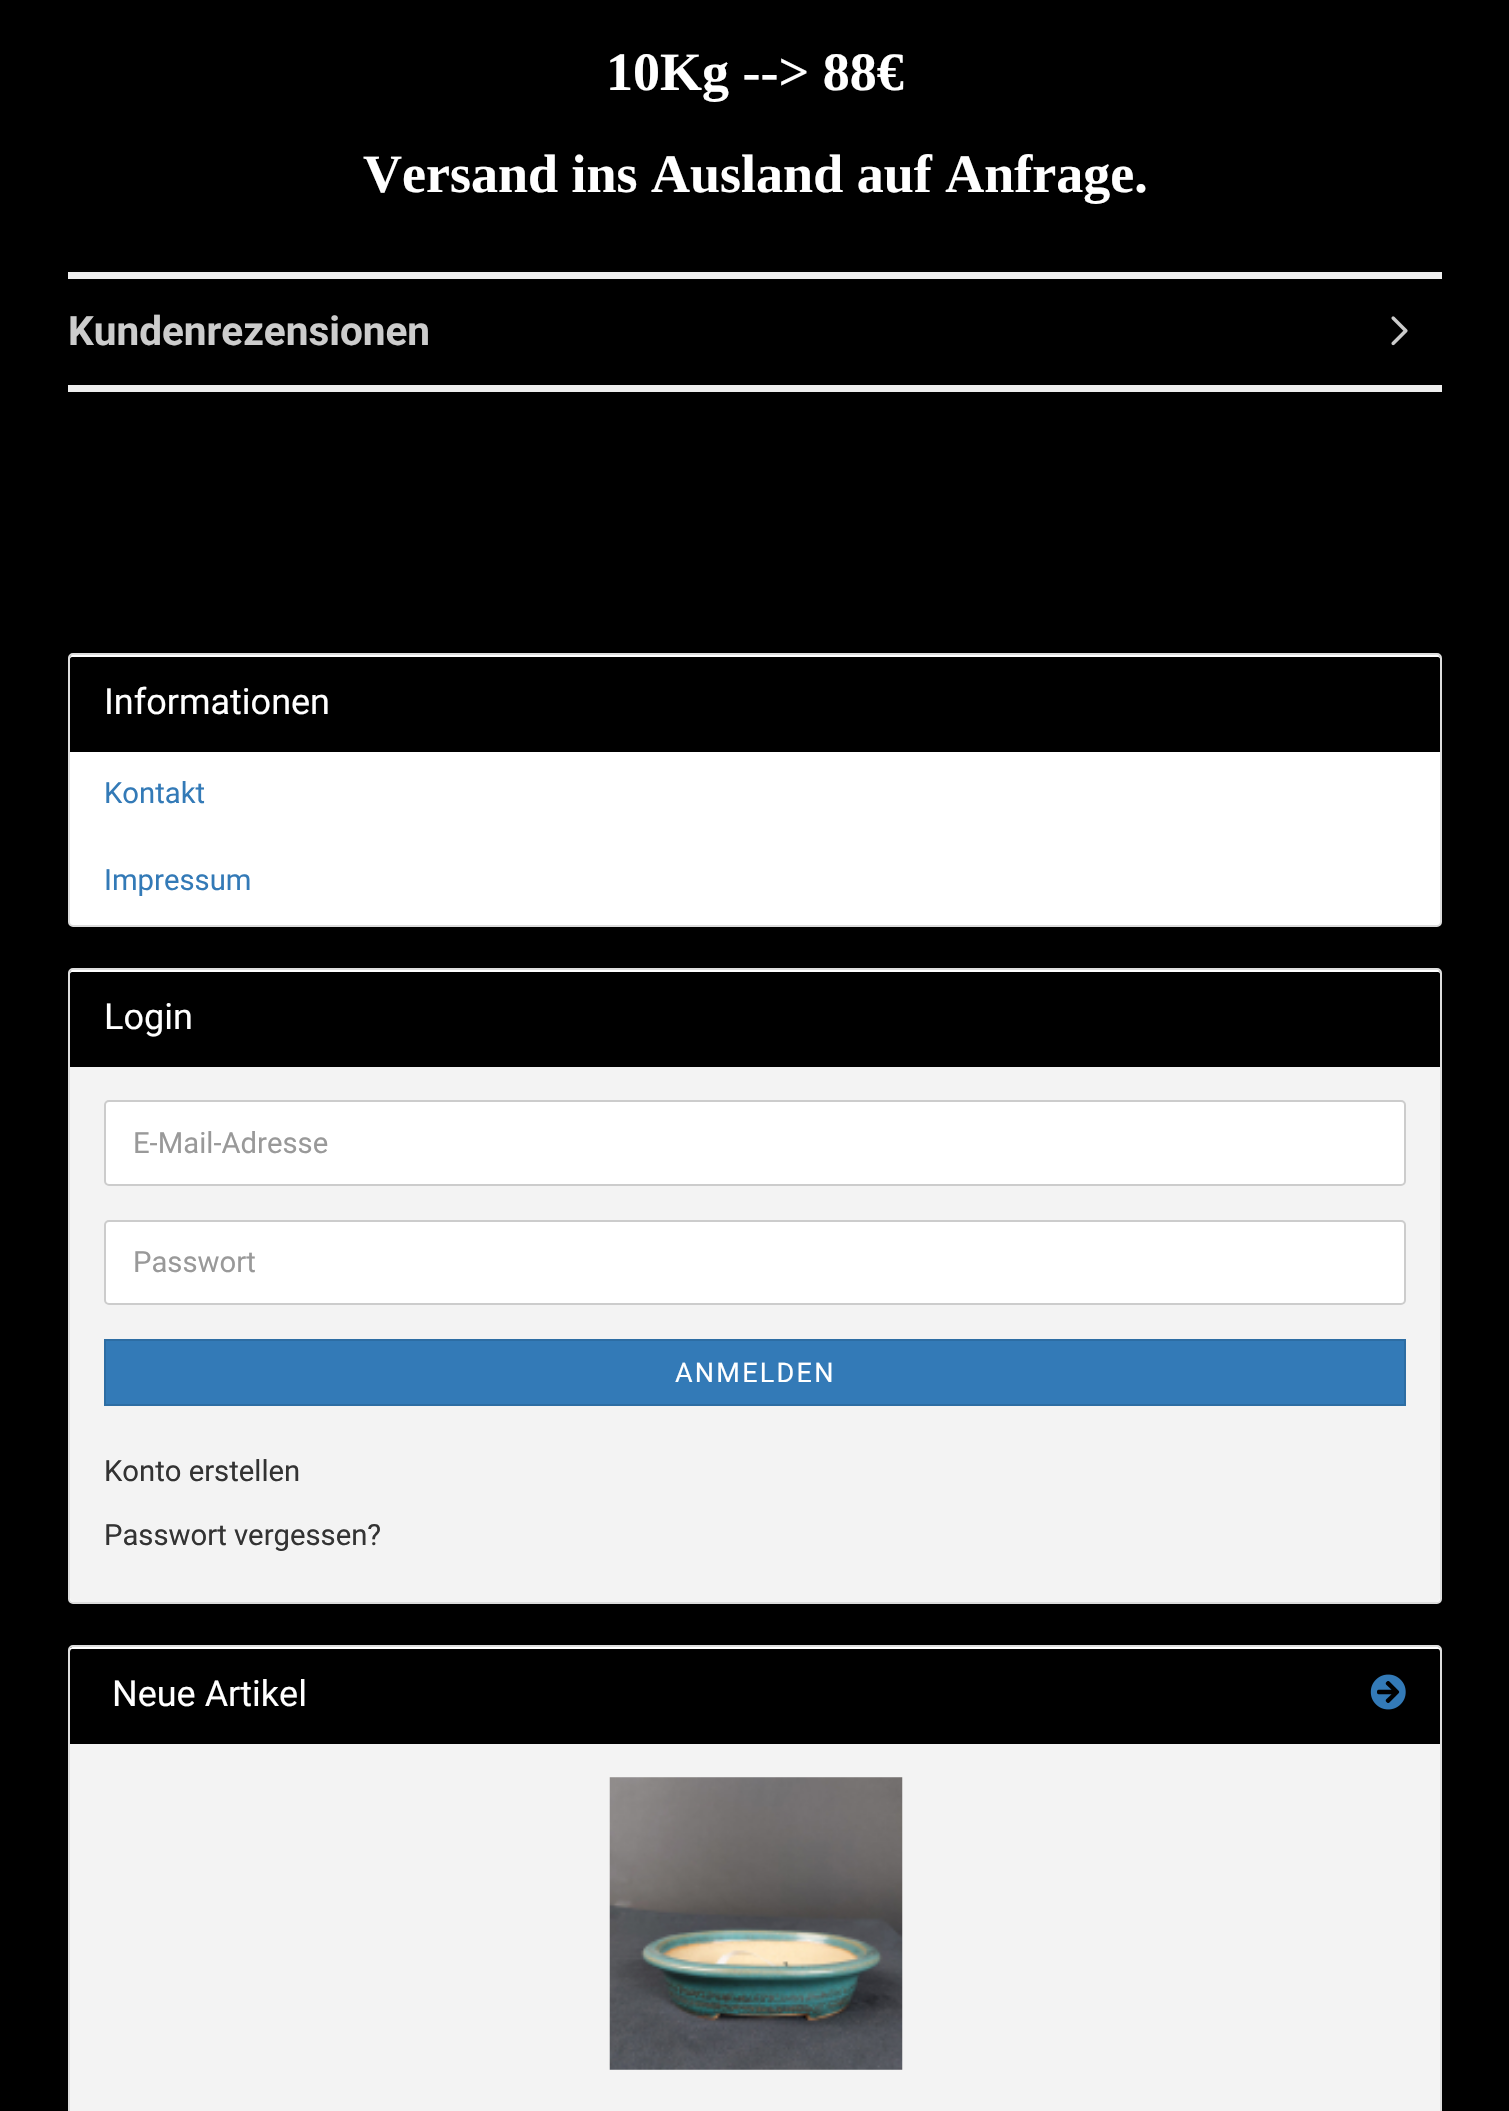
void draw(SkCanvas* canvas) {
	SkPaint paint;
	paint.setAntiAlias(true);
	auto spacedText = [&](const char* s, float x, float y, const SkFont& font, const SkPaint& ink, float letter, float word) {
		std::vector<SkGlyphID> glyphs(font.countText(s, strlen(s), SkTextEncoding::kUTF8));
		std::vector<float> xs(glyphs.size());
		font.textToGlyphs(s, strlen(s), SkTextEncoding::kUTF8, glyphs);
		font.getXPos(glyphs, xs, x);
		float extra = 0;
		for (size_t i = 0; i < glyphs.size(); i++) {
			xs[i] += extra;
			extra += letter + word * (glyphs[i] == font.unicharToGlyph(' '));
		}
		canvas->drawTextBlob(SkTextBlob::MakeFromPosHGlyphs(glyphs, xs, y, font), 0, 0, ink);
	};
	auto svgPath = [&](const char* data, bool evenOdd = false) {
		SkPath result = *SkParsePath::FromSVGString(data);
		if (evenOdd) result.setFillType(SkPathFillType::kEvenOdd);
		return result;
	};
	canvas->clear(0xff000000);
	paint.setColor(0xffeeeeee);
	canvas->drawRect(SkRect::MakeXYWH(68, 272, 1374, 7), paint);
	SkFont f1(fontMgr->matchFamilyStyle("Liberation Serif", SkFontStyle::Bold()), 54);
	f1.setSubpixel(true);
	paint.setColor(0xffffffff);
	canvas->drawString("10Kg --> 88€", 606, 90, f1, paint);
	canvas->drawString("Versand ins Ausland auf Anfrage.", 363, 192, f1, paint);
	paint.setColor(0xffeeeeee);
	canvas->drawRect(SkRect::MakeXYWH(68, 385, 1374, 7), paint);
	SkFont f2(fontMgr->matchFamilyStyle("Roboto", SkFontStyle::Bold()), 40.5);
	f2.setSubpixel(true);
	paint.setColor(0xffcccccc);
	canvas->drawString("Kundenrezensionen", 68, 345, f2, paint);
	canvas->drawImageRect(SkImages::DeferredFromEncodedData(SkData::MakeFromFileName("img1.png")), SkRect::MakeXYWH(1391, 316, 17, 30), SkSamplingOptions());
	paint.setColor(0xffffffff);
	canvas->drawRoundRect(SkRect::MakeXYWH(69, 654, 1372, 272), 4, 4, paint);
	paint.setStroke(true);
	paint.setStrokeWidth(2);
	paint.setColor(0xffdddddd);
	canvas->drawRoundRect(SkRect::MakeXYWH(69, 654, 1372, 272), 4, 4, paint);
	paint.setStroke(false);
	paint.setColor(0xff000000);
	canvas->drawPath(svgPath("M72 655H1438C1439 655 1440 656 1440 657V752H70V657C70 656 71 655 72 655Z"), paint);
	paint.setColor(0xffffffff);
	canvas->drawPath(svgPath("M72 657H1438C1439 657 1440 658 1440 659C1440 657 1440 655 1438 655H72C70 655 70 657 70 659C70 658 71 657 72 657Z"), paint);
	SkFont f3(fontMgr->matchFamilyStyle("Roboto", SkFontStyle::Normal()), 36);
	f3.setSubpixel(true);
	canvas->drawString("Informationen", 104, 714, f3, paint);
	SkFont f4(fontMgr->matchFamilyStyle("Roboto", SkFontStyle::Normal()), 29.25);
	f4.setSubpixel(true);
	paint.setColor(0xff337ab7);
	canvas->drawString("Kontakt", 104, 803, f4, paint);
	canvas->drawString("Impressum", 104, 890, f4, paint);
	paint.setColor(0xffffffff);
	canvas->drawRoundRect(SkRect::MakeXYWH(69, 969, 1372, 634), 4, 4, paint);
	paint.setStroke(true);
	paint.setColor(0xffdddddd);
	canvas->drawRoundRect(SkRect::MakeXYWH(69, 969, 1372, 634), 4, 4, paint);
	paint.setStroke(false);
	paint.setColor(0xff000000);
	canvas->drawPath(svgPath("M72 970H1438C1439 970 1440 971 1440 972V1067H70V972C70 971 71 970 72 970Z"), paint);
	paint.setColor(0xffffffff);
	canvas->drawPath(svgPath("M72 972H1438C1439 972 1440 973 1440 974C1440 972 1440 970 1438 970H72C70 970 70 972 70 974C70 973 71 972 72 972Z"), paint);
	canvas->drawString("Login", 104, 1029, f3, paint);
	paint.setColor(0xfff3f3f3);
	canvas->drawPath(svgPath("M70 1067H1440V1597C1440 1600 1438 1602 1435 1602H75C72 1602 70 1600 70 1597Z"), paint);
	paint.setColor(0xffffffff);
	canvas->drawRoundRect(SkRect::MakeXYWH(105, 1101, 1300, 84), 4, 4, paint);
	paint.setStroke(true);
	paint.setColor(0xffcccccc);
	canvas->drawRoundRect(SkRect::MakeXYWH(105, 1101, 1300, 84), 4, 4, paint);
	paint.setStroke(false);
	paint.setColor(0xff999999);
	canvas->drawString("E-Mail-Adresse", 133, 1153, f4, paint);
	paint.setColor(0xffffffff);
	canvas->drawRoundRect(SkRect::MakeXYWH(105, 1221, 1300, 83), 4, 4, paint);
	paint.setStroke(true);
	paint.setColor(0xffcccccc);
	canvas->drawRoundRect(SkRect::MakeXYWH(105, 1221, 1300, 83), 4, 4, paint);
	paint.setStroke(false);
	paint.setColor(0xff999999);
	canvas->drawString("Passwort", 133, 1272, f4, paint);
	paint.setColor(0xff337ab7);
	canvas->drawRect(SkRect::MakeXYWH(105, 1340, 1300, 65), paint);
	paint.setStroke(true);
	paint.setColor(0xff2d6da3);
	canvas->drawRect(SkRect::MakeXYWH(105, 1340, 1300, 65), paint);
	SkFont f5(fontMgr->matchFamilyStyle("Roboto", SkFontStyle::Normal()), 27);
	f5.setSubpixel(true);
	paint.setStroke(false);
	paint.setColor(0xffffffff);
	spacedText("ANMELDEN", 675, 1382, f5, paint, 2.25, 0);
	paint.setColor(0xff333333);
	canvas->drawString("Konto erstellen", 104, 1481, f4, paint);
	canvas->drawString("Passwort vergessen?", 104, 1545, f4, paint);
	paint.setStroke(true);
	paint.setColor(0xffdddddd);
	canvas->drawRoundRect(SkRect::MakeXYWH(69, 1646, 1372, 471), 4, 4, paint);
	paint.setStroke(false);
	paint.setColor(0xff000000);
	canvas->drawPath(svgPath("M72 1647H1438C1439 1647 1440 1648 1440 1649V1744H70V1649C70 1648 71 1647 72 1647Z"), paint);
	paint.setColor(0xffffffff);
	canvas->drawPath(svgPath("M72 1649H1438C1439 1649 1440 1650 1440 1652C1440 1650 1441 1647 1438 1647H72L70 1648V1652C70 1650 71 1649 72 1649Z"), paint);
	canvas->drawString("Neue Artikel", 112, 1706, f3, paint);
	canvas->drawImageRect(SkImages::DeferredFromEncodedData(SkData::MakeFromFileName("img2.png")), SkRect::MakeXYWH(1370, 1674, 36, 36), SkSamplingOptions());
	paint.setColor(0xfff3f3f3);
	canvas->drawRect(SkRect::MakeXYWH(70, 1744, 1370, 367), paint);
	canvas->drawImageRect(SkImages::DeferredFromEncodedData(SkData::MakeFromFileName("img3.png")), SkRect::MakeXYWH(609, 1777, 294, 293), SkSamplingOptions());
}
